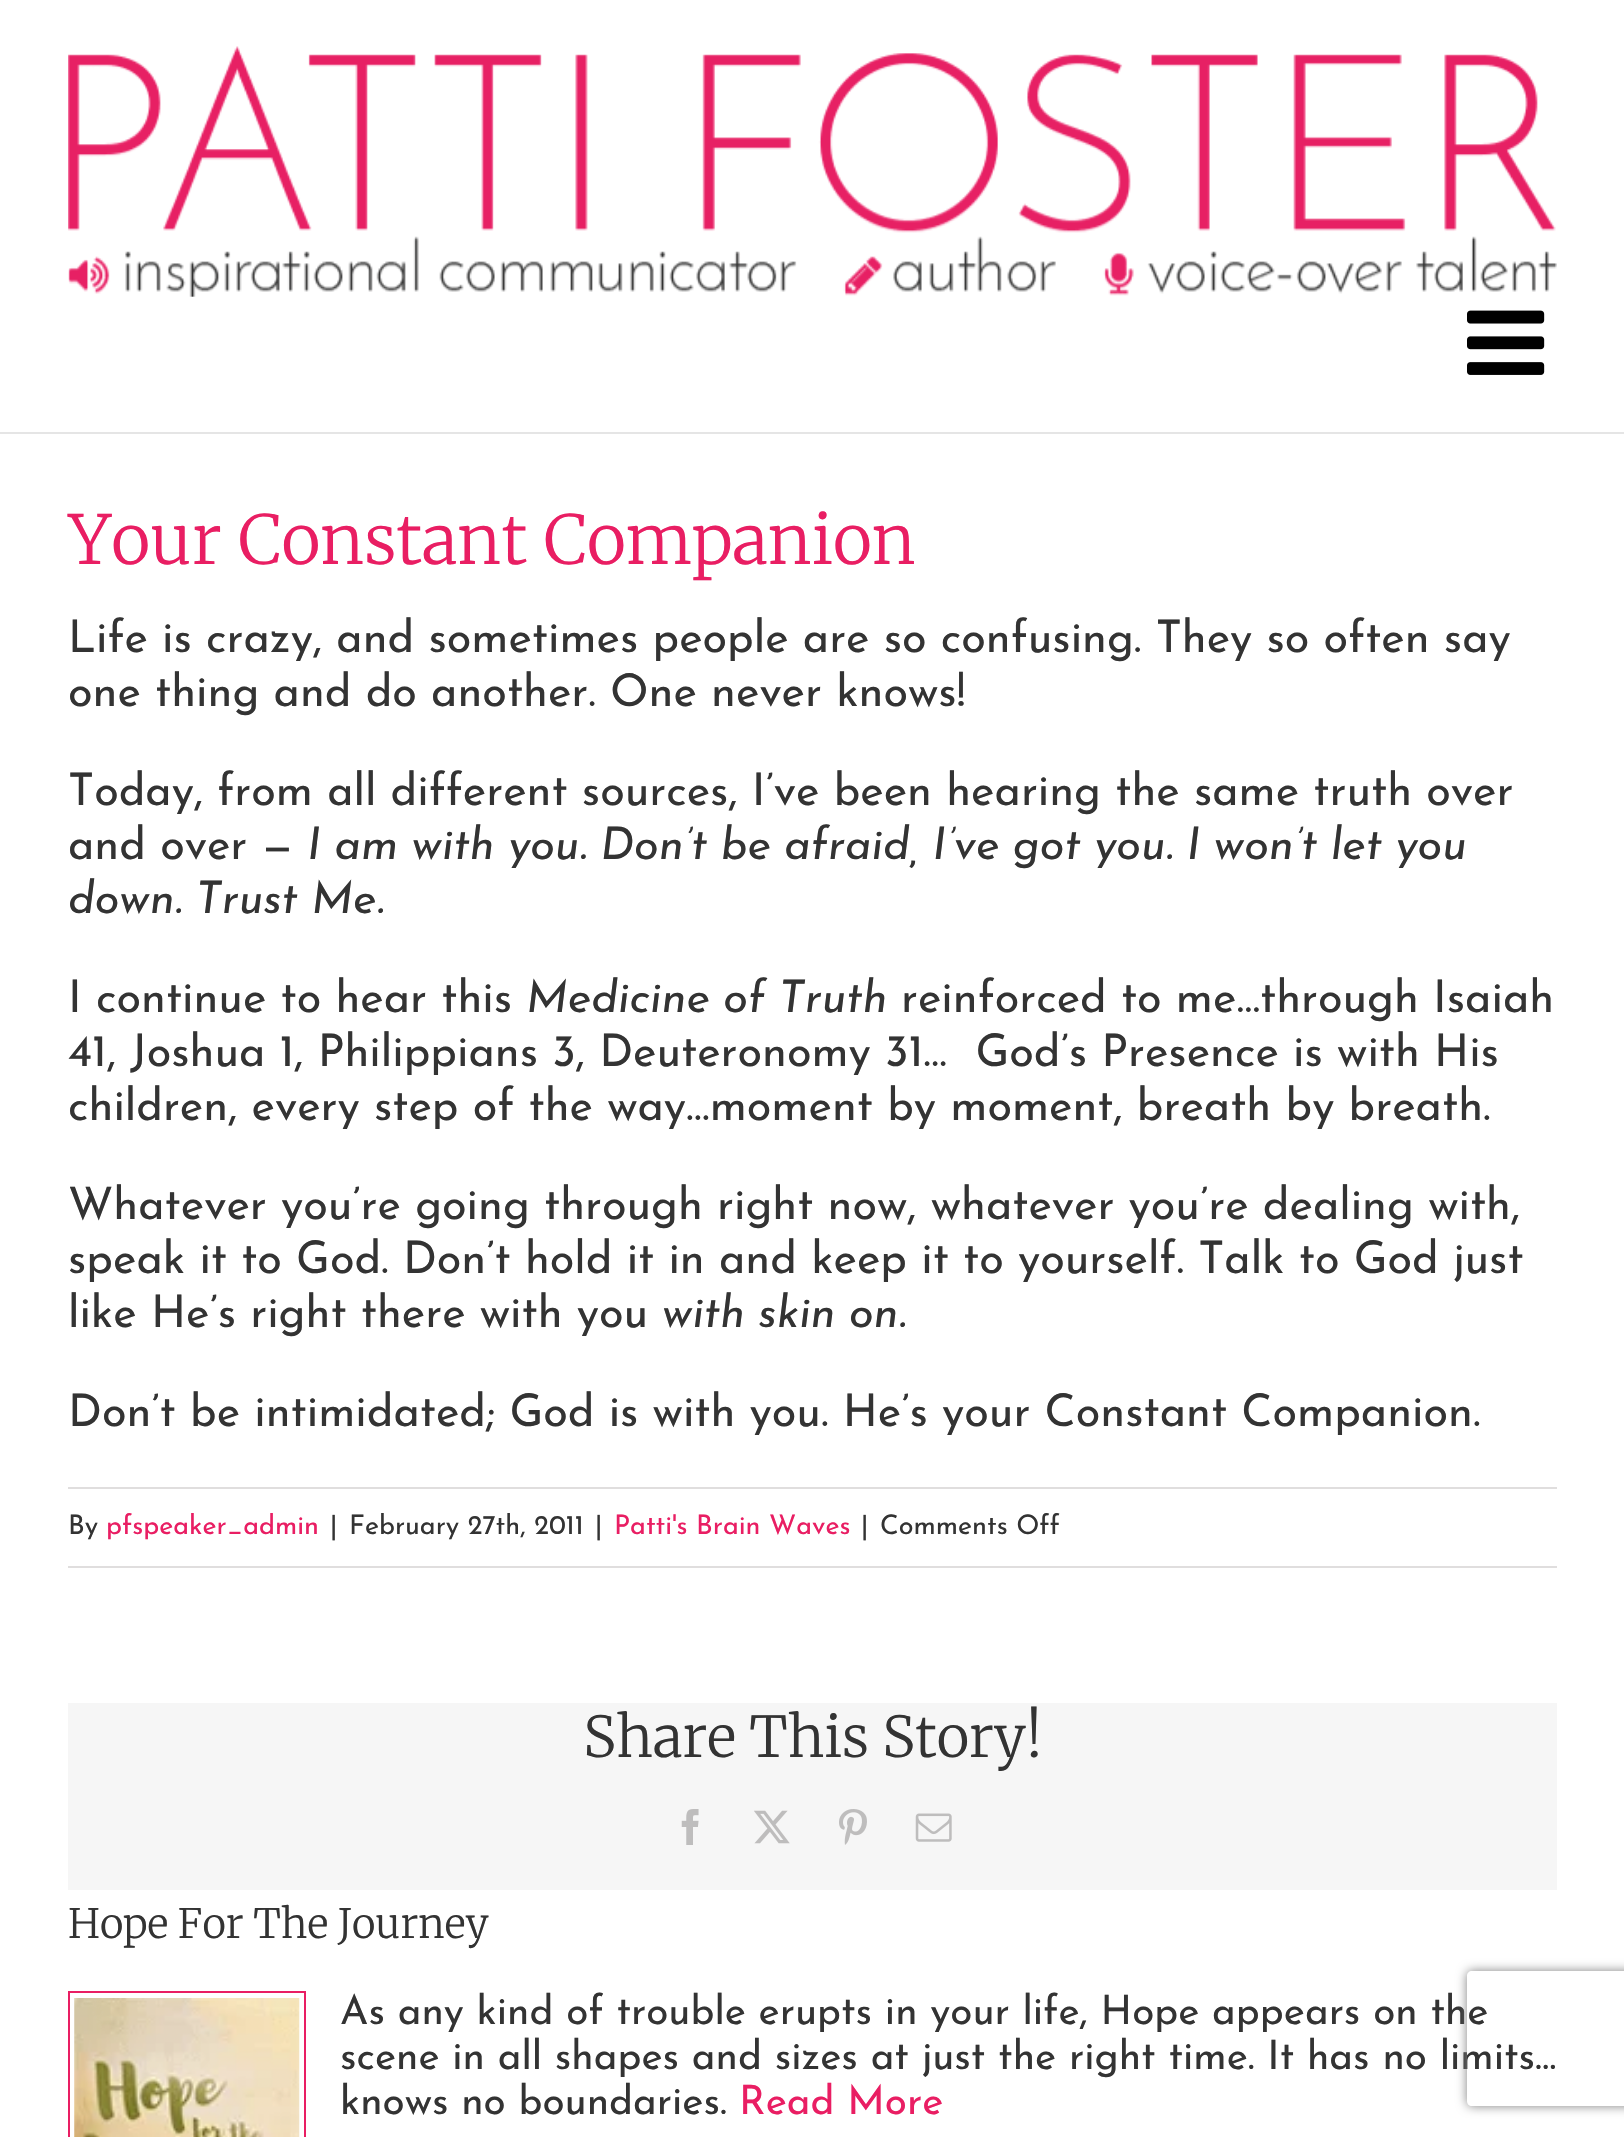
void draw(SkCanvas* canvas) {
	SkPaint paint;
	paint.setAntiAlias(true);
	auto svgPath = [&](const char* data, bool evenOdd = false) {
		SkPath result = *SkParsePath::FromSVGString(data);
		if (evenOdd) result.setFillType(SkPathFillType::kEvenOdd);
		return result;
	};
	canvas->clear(0xffffffff);
	paint.setColor(0xffe5e5e5);
	canvas->drawRect(SkRect::MakeXYWH(0, 432, 1624, 2), paint);
	canvas->drawImageRect(SkImages::DeferredFromEncodedData(SkData::MakeFromFileName("img1.png")), SkRect::MakeXYWH(68, 46, 1489, 251), SkSamplingOptions());
	canvas->drawImageRect(SkImages::DeferredFromEncodedData(SkData::MakeFromFileName("img2.png")), SkRect::MakeXYWH(1467, 310, 78, 65), SkSamplingOptions());
	SkFont f1(fontMgr->matchFamilyStyle("Merriweather", SkFontStyle(300, SkFontStyle::kNormal_Width, SkFontStyle::kUpright_Slant)), 67.5);
	f1.setSubpixel(true);
	paint.setColor(0xffe91e63);
	canvas->drawString("Your Constant Companion", 68, 564, f1, paint);
	SkFont f2(fontMgr->matchFamilyStyle("Josefin Sans", SkFontStyle::Normal()), 45);
	f2.setSubpixel(true);
	paint.setColor(0xff333333);
	canvas->drawString("Life is crazy, and sometimes people are so confusing. They so often say", 68, 652, f2, paint);
	canvas->drawString("one thing and do another. One never knows!", 68, 706, f2, paint);
	canvas->drawString("Today, from all different sources, I’ve been hearing the same truth over", 68, 805, f2, paint);
	canvas->drawString("and over —", 68, 859, f2, paint);
	SkFont f3(fontMgr->matchFamilyStyle("Josefin Sans", SkFontStyle::Italic()), 45);
	f3.setSubpixel(true);
	canvas->drawString("I am with you. Don’t be afraid, I’ve got you. I won’t let you", 307, 859, f3, paint);
	canvas->drawString("down. Trust Me.", 68, 913, f3, paint);
	canvas->drawString("I continue to hear this", 68, 1012, f2, paint);
	canvas->drawString("Medicine of Truth", 526, 1012, f3, paint);
	canvas->drawString("reinforced to me…through Isaiah", 901, 1012, f2, paint);
	canvas->drawString("41, Joshua 1, Philippians 3, Deuteronomy 31…  God’s Presence is with His", 68, 1066, f2, paint);
	canvas->drawString("children, every step of the way…moment by moment, breath by breath.", 68, 1120, f2, paint);
	canvas->drawString("Whatever you’re going through right now, whatever you’re dealing with,", 68, 1219, f2, paint);
	canvas->drawString("speak it to God. Don’t hold it in and keep it to yourself. Talk to God just", 68, 1273, f2, paint);
	canvas->drawString("like He’s right there with you", 68, 1327, f2, paint);
	canvas->drawString("with skin on.", 662, 1327, f3, paint);
	canvas->drawString("Don’t be intimidated; God is with you. He’s your Constant Companion.", 68, 1426, f2, paint);
	paint.setColor(0xffe0dede);
	canvas->drawRect(SkRect::MakeXYWH(68, 1487, 1489, 2), paint);
	canvas->drawRect(SkRect::MakeXYWH(68, 1566, 1489, 2), paint);
	SkFont f4(fontMgr->matchFamilyStyle("Josefin Sans", SkFontStyle::Normal()), 27);
	f4.setSubpixel(true);
	paint.setColor(0xff333333);
	canvas->drawString("By", 68, 1534, f4, paint);
	paint.setColor(0xffe91e63);
	canvas->drawString("pfspeaker_admin", 106, 1534, f4, paint);
	paint.setColor(0xff333333);
	canvas->drawString("|", 330, 1534, f4, paint);
	canvas->drawString("February 27th, 2011", 349, 1534, f4, paint);
	canvas->drawString("|", 595, 1534, f4, paint);
	paint.setColor(0xffe91e63);
	canvas->drawString("Patti's Brain Waves", 614, 1534, f4, paint);
	paint.setColor(0xff333333);
	canvas->drawString("|", 861, 1534, f4, paint);
	canvas->drawString("Comments Off", 880, 1534, f4, paint);
	paint.setColor(0xfff6f6f6);
	canvas->drawRect(SkRect::MakeXYWH(68, 1703, 1489, 187), paint);
	SkFont f5(fontMgr->matchFamilyStyle("Merriweather", SkFontStyle(300, SkFontStyle::kNormal_Width, SkFontStyle::kUpright_Slant)), 56.25);
	f5.setSubpixel(true);
	paint.setColor(0xff333333);
	canvas->drawString("Share This Story!", 583, 1757, f5, paint);
	canvas->drawImageRect(SkImages::DeferredFromEncodedData(SkData::MakeFromFileName("img3.png")), SkRect::MakeXYWH(681, 1809, 18, 36), SkSamplingOptions());
	canvas->drawImageRect(SkImages::DeferredFromEncodedData(SkData::MakeFromFileName("img4.png")), SkRect::MakeXYWH(754, 1810, 36, 34), SkSamplingOptions());
	canvas->drawImageRect(SkImages::DeferredFromEncodedData(SkData::MakeFromFileName("img5.png")), SkRect::MakeXYWH(839, 1809, 28, 36), SkSamplingOptions());
	canvas->drawImageRect(SkImages::DeferredFromEncodedData(SkData::MakeFromFileName("img6.png")), SkRect::MakeXYWH(915, 1813, 37, 29), SkSamplingOptions());
	SkFont f6(fontMgr->matchFamilyStyle("Merriweather", SkFontStyle(300, SkFontStyle::kNormal_Width, SkFontStyle::kUpright_Slant)), 40.5);
	f6.setSubpixel(true);
	canvas->drawString("Hope For The Journey", 68, 1938, f6, paint);
	paint.setStroke(true);
	paint.setStrokeWidth(2);
	paint.setColor(0xffe91e63);
	canvas->drawRect(SkRect::MakeXYWH(69, 1992, 236, 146), paint);
	canvas->drawImageRect(SkImages::DeferredFromEncodedData(SkData::MakeFromFileName("img7.png")), SkRect::MakeXYWH(74, 1998, 226, 139), SkSamplingOptions());
	SkFont f7(fontMgr->matchFamilyStyle("Josefin Sans", SkFontStyle::Normal()), 40.5);
	f7.setSubpixel(true);
	paint.setStroke(false);
	paint.setColor(0xff333333);
	canvas->drawString("As any kind of trouble erupts in your life, Hope appears on the", 340, 2024, f7, paint);
	canvas->drawString("scene in all shapes and sizes at just the right time. It has no limits…", 340, 2069, f7, paint);
	canvas->drawString("knows no boundaries.", 340, 2114, f7, paint);
	paint.setColor(0xffe91e63);
	canvas->drawString("Read More", 739, 2114, f7, paint);
	canvas->save();
	canvas->clipPath(svgPath("M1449 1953H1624V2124H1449ZM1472 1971H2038C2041 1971 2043 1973 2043 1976V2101C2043 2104 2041 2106 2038 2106H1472C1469 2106 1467 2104 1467 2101V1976C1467 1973 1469 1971 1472 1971Z", true), true);
	paint.setColor(0xff808080);
	paint.setMaskFilter(SkMaskFilter::MakeBlur(kNormal_SkBlurStyle, 5.5));
	canvas->drawRoundRect(SkRect::MakeXYWH(1467, 1971, 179, 135), 5, 5, paint);
	paint.setMaskFilter(nullptr);
	canvas->restore();
}
